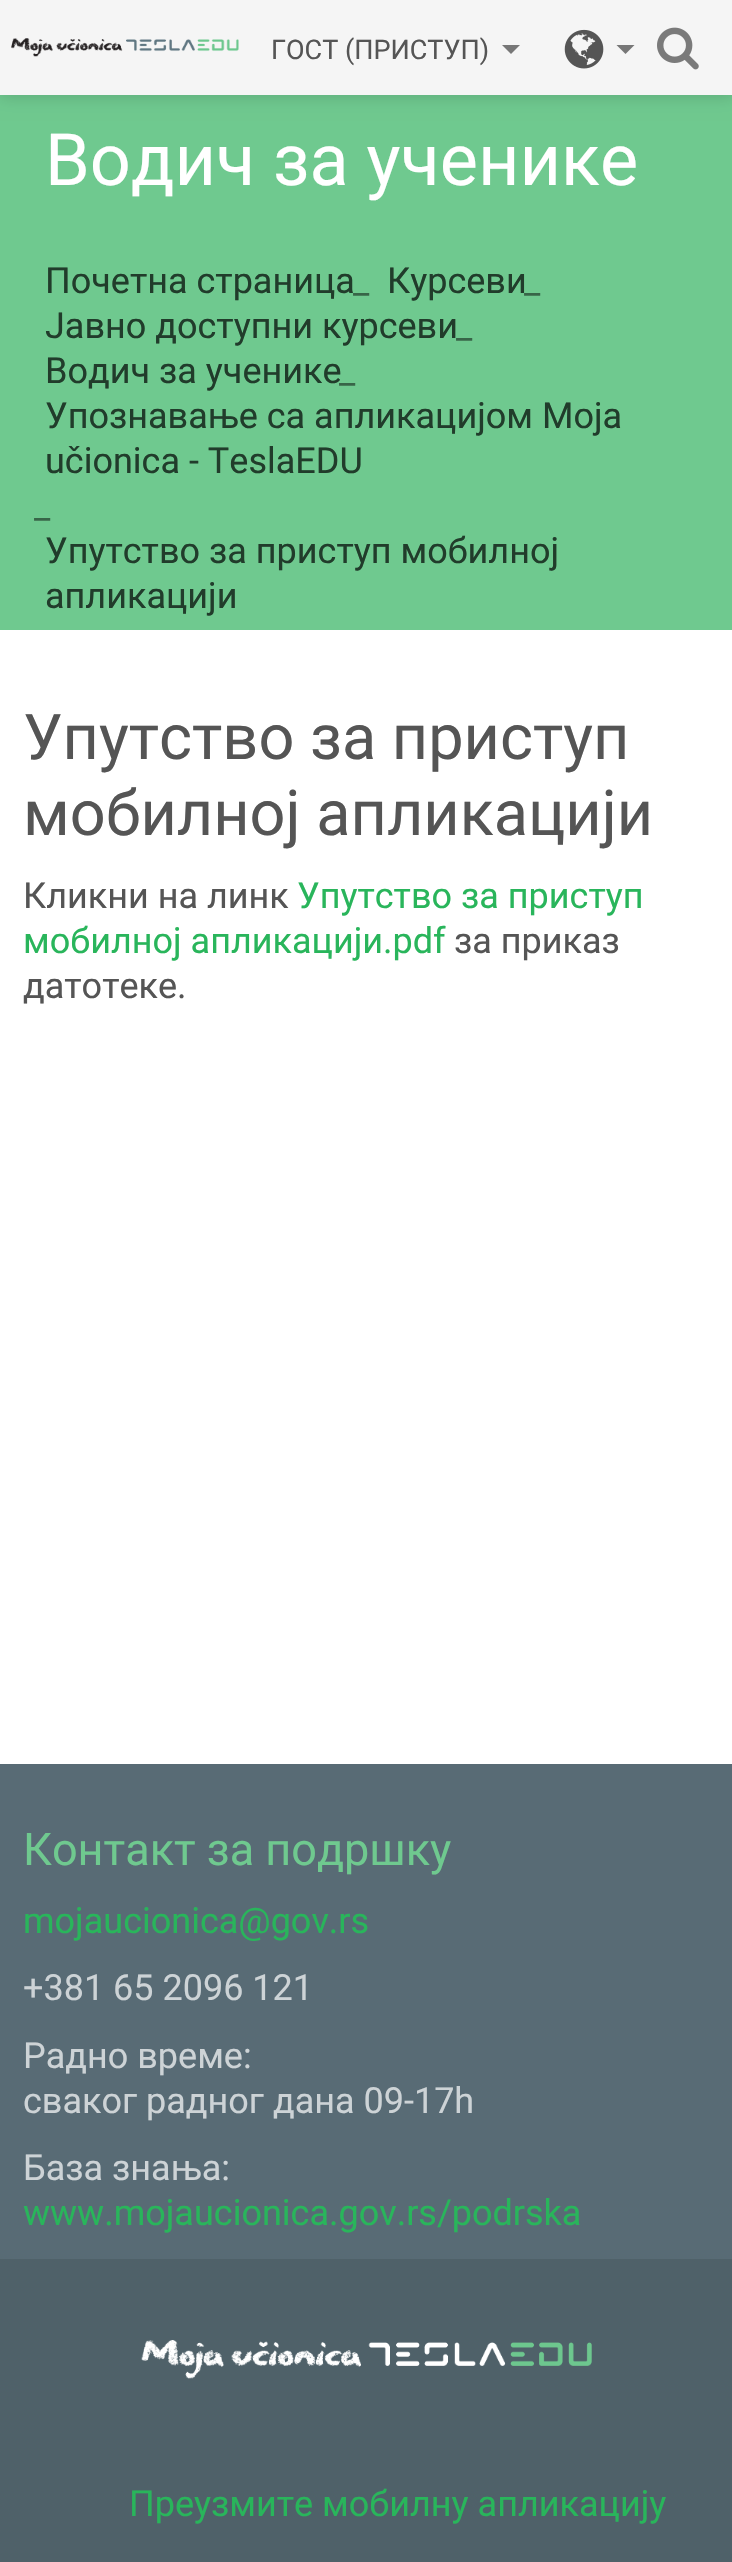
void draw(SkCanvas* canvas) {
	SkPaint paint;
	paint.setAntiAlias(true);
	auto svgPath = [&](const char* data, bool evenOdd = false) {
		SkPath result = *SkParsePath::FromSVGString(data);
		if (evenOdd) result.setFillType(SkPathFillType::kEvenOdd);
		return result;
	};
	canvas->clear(0xffffffff);
	paint.setColor(0xff6fc98f);
	canvas->drawRect(SkRect::MakeXYWH(0, 95, 732, 535), paint);
	paint.setColor(0x26000000);
	paint.setMaskFilter(SkMaskFilter::MakeBlur(kNormal_SkBlurStyle, 8));
	canvas->drawRect(SkRect::MakeXYWH(0, 2, 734, 95), paint);
	paint.setMaskFilter(nullptr);
	paint.setColor(0xfff5f5f5);
	canvas->drawRect(SkRect::MakeXYWH(0, 0, 732, 95), paint);
	canvas->drawImageRect(SkImages::DeferredFromEncodedData(SkData::MakeFromFileName("img1.png")), SkRect::MakeXYWH(11, 38, 228, 19), SkSamplingOptions());
	SkFont f1(fontMgr->matchFamilyStyle("Roboto", SkFontStyle::Normal()), 27);
	f1.setSubpixel(true);
	paint.setColor(0xff555555);
	canvas->drawString("ГОСТ (ПРИСТУП)", 271, 59, f1, paint);
	paint.setColor(0xff777777);
	canvas->drawPath(svgPath("M502 45H520L511 54Z"), paint);
	canvas->drawImageRect(SkImages::DeferredFromEncodedData(SkData::MakeFromFileName("img2.png")), SkRect::MakeXYWH(564, 29, 40, 40), SkSamplingOptions());
	canvas->drawPath(svgPath("M616.5 45H634.5L625.5 54Z"), paint);
	canvas->drawImageRect(SkImages::DeferredFromEncodedData(SkData::MakeFromFileName("img3.png")), SkRect::MakeXYWH(657, 27, 42, 43), SkSamplingOptions());
	SkFont f2(fontMgr->matchFamilyStyle("Roboto", SkFontStyle::Normal()), 72);
	f2.setSubpixel(true);
	paint.setColor(0xffffffff);
	canvas->drawString("Водич за ученике", 45, 185, f2, paint);
	SkFont f3(fontMgr->matchFamilyStyle("Roboto", SkFontStyle::Normal()), 36);
	f3.setSubpixel(true);
	paint.setColor(0xff213c2b);
	canvas->drawString("Почетна страница", 45, 293, f3, paint);
	paint.setColor(0xff386548);
	canvas->drawString("_", 353, 293, f3, paint);
	paint.setColor(0xff213c2b);
	canvas->drawString("Курсеви", 387, 293, f3, paint);
	paint.setColor(0xff386548);
	canvas->drawString("_", 524, 293, f3, paint);
	paint.setColor(0xff213c2b);
	canvas->drawString("Јавно доступни курсеви", 45, 338, f3, paint);
	paint.setColor(0xff386548);
	canvas->drawString("_", 456, 338, f3, paint);
	paint.setColor(0xff213c2b);
	canvas->drawString("Водич за ученике", 45, 383, f3, paint);
	paint.setColor(0xff386548);
	canvas->drawString("_", 339, 383, f3, paint);
	paint.setColor(0xff213c2b);
	canvas->drawString("Упознавање са апликацијом Mojа", 45, 428, f3, paint);
	canvas->drawString("učionicа - TeslaEDU", 45, 473, f3, paint);
	paint.setColor(0xff386548);
	canvas->drawString("_", 34, 518, f3, paint);
	paint.setColor(0xff213c2b);
	canvas->drawString("Упутство за приступ мобилној", 45, 563, f3, paint);
	canvas->drawString("апликацији", 45, 608, f3, paint);
	SkFont f4(fontMgr->matchFamilyStyle("Roboto", SkFontStyle::Normal()), 63);
	f4.setSubpixel(true);
	paint.setColor(0xff555555);
	canvas->drawString("Упутство за приступ", 23, 759, f4, paint);
	canvas->drawString("мобилној апликацији", 23, 835, f4, paint);
	canvas->drawString("Кликни на линк", 23, 908, f3, paint);
	paint.setColor(0xff29b55b);
	canvas->drawString("Упутство за приступ", 297, 908, f3, paint);
	canvas->drawString("мобилној апликацији.pdf", 23, 953, f3, paint);
	paint.setColor(0xff555555);
	canvas->drawString("за приказ", 454, 953, f3, paint);
	canvas->drawString("датотеке.", 23, 998, f3, paint);
	paint.setColor(0xff586b75);
	canvas->drawRect(SkRect::MakeXYWH(0, 1764, 732, 495), paint);
	SkFont f5(fontMgr->matchFamilyStyle("Roboto", SkFontStyle::Normal()), 45);
	f5.setSubpixel(true);
	paint.setColor(0xff6fc98f);
	canvas->drawString("Контакт за подршку", 23, 1865, f5, paint);
	paint.setColor(0xff29b55b);
	canvas->drawString("mojaucionica@gov.rs", 23, 1933, f3, paint);
	paint.setColor(0xffcdd3d6);
	canvas->drawString("+381 65 2096 121", 23, 2000, f3, paint);
	canvas->drawString("Радно време:", 23, 2068, f3, paint);
	canvas->drawString("сваког радног дана 09-17h", 23, 2113, f3, paint);
	canvas->drawString("База знања:", 23, 2180, f3, paint);
	paint.setColor(0xff29b55b);
	canvas->drawString("www.mojaucionica.gov.rs/podrska", 23, 2225, f3, paint);
	paint.setColor(0xff4f6169);
	canvas->drawRect(SkRect::MakeXYWH(0, 2259, 732, 303), paint);
	canvas->drawImageRect(SkImages::DeferredFromEncodedData(SkData::MakeFromFileName("img4.png")), SkRect::MakeXYWH(141, 2340, 451, 39), SkSamplingOptions());
	paint.setColor(0xff29b55b);
	canvas->drawString("Преузмите мобилну апликацију", 129, 2516, f3, paint);
}
